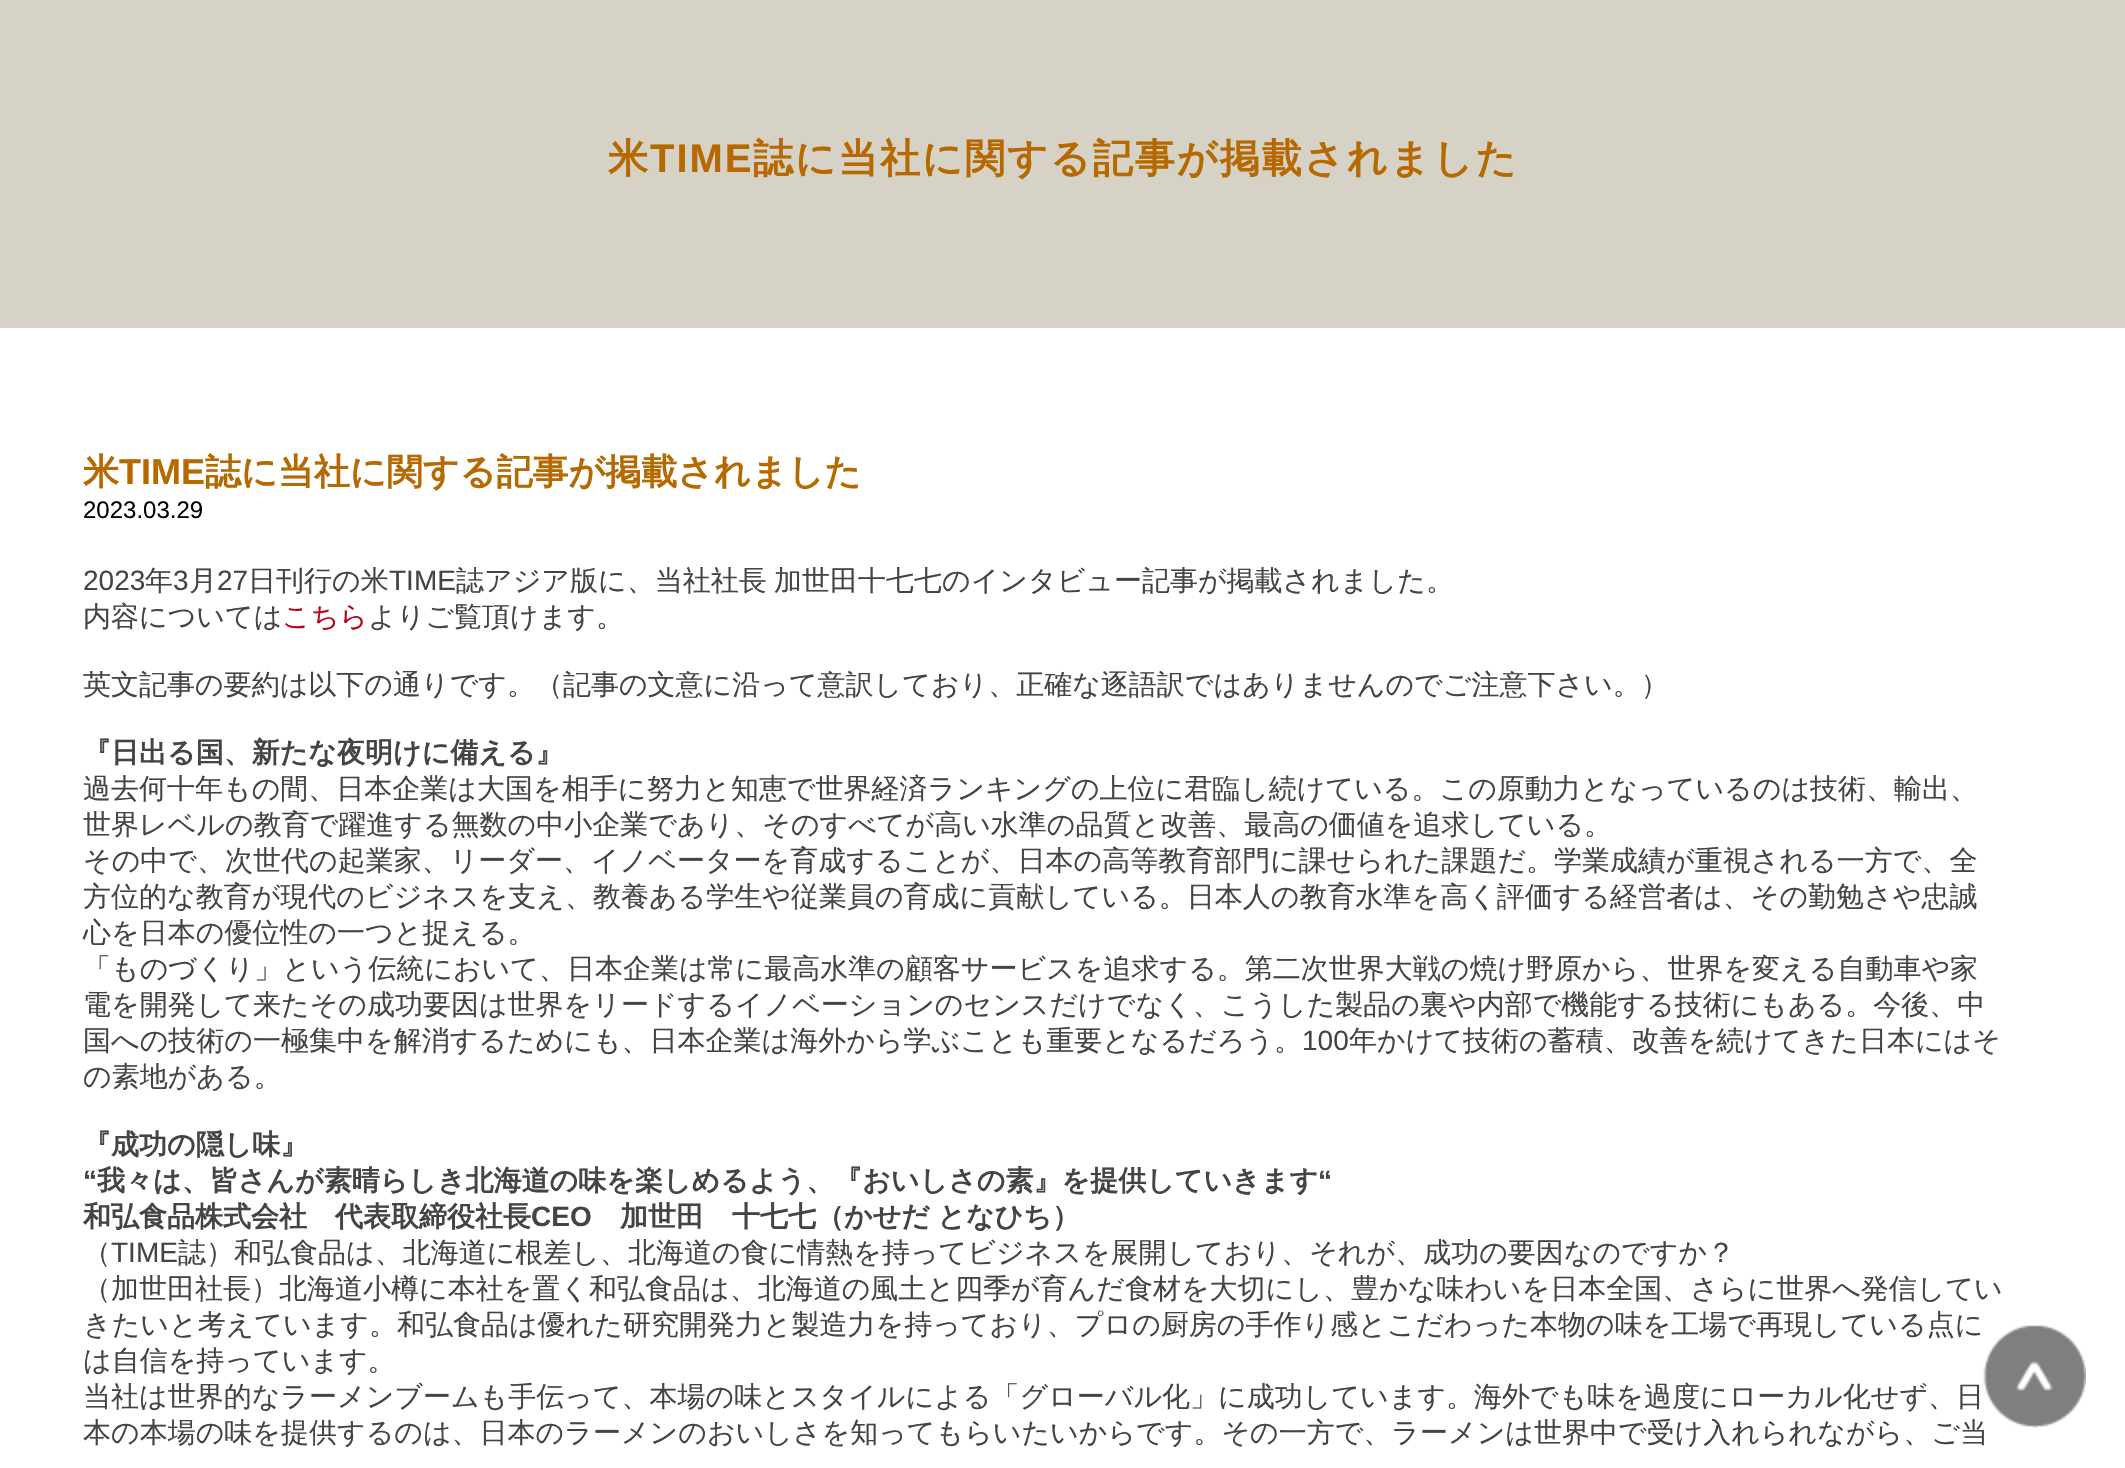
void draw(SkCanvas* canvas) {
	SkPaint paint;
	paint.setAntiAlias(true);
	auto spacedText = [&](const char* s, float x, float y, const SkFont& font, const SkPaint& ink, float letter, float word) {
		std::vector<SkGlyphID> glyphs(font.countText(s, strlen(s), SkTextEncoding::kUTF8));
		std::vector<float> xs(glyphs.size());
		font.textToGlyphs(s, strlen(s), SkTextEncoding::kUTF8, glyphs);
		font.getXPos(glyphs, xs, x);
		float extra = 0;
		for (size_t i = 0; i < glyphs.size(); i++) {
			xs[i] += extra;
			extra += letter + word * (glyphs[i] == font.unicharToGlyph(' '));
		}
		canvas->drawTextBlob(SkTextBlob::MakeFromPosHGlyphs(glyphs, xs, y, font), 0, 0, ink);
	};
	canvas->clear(0xffffffff);
	paint.setColor(0xffd6d3c6);
	canvas->drawRect(SkRect::MakeXYWH(0, 0, 2125, 328), paint);
	SkFont f1(fontMgr->matchFamilyStyle("WenQuanYi Zen Hei", SkFontStyle::Bold()), 40);
	f1.setSubpixel(true);
	paint.setColor(0xffb66900);
	spacedText("米", 608, 172, f1, paint, 2, 0);
	SkFont f2(fontMgr->matchFamilyStyle("Liberation Sans", SkFontStyle::Bold()), 40);
	f2.setSubpixel(true);
	spacedText("TIME", 650, 172, f2, paint, 2, 0);
	spacedText("誌に当社に関する記事が掲載されました", 753, 172, f1, paint, 2, 0);
	SkFont f3(fontMgr->matchFamilyStyle("WenQuanYi Zen Hei", SkFontStyle::Bold()), 36);
	f3.setSubpixel(true);
	canvas->drawString("米", 83, 484, f3, paint);
	SkFont f4(fontMgr->matchFamilyStyle("Liberation Sans", SkFontStyle::Bold()), 36);
	f4.setSubpixel(true);
	canvas->drawString("TIME", 119, 484, f4, paint);
	canvas->drawString("誌に当社に関する記事が掲載されました", 205, 484, f3, paint);
	SkFont f5(fontMgr->matchFamilyStyle("Liberation Sans", SkFontStyle::Normal()), 24);
	f5.setSubpixel(true);
	paint.setColor(0xff000000);
	canvas->drawString("2023.03.29", 83, 518, f5, paint);
	SkFont f6(fontMgr->matchFamilyStyle("Liberation Sans", SkFontStyle::Normal()), 28);
	f6.setSubpixel(true);
	paint.setColor(0xff444444);
	canvas->drawString("2023", 83, 590, f6, paint);
	SkFont f7(fontMgr->matchFamilyStyle("WenQuanYi Zen Hei", SkFontStyle(500, SkFontStyle::kNormal_Width, SkFontStyle::kUpright_Slant)), 28);
	f7.setSubpixel(true);
	canvas->drawString("年", 145, 590, f7, paint);
	canvas->drawString("3", 173, 590, f6, paint);
	canvas->drawString("月", 189, 590, f7, paint);
	canvas->drawString("27", 217, 590, f6, paint);
	canvas->drawString("日刊行の米", 248, 590, f7, paint);
	canvas->drawString("TIME", 389, 590, f6, paint);
	spacedText("誌アジア版に、当社社長 加世田十七七のインタビュー記事が掲載されました。", 456, 590, f7, paint, 0, -1);
	canvas->drawString("内容については", 83, 626, f7, paint);
	paint.setColor(0xffb60617);
	canvas->drawString("こちら", 282, 626, f7, paint);
	paint.setColor(0xff444444);
	canvas->drawString("よりご覧頂けます。", 368, 626, f7, paint);
	canvas->drawString("英文記事の要約は以下の通りです。（記事の文意に沿って意訳しており、正確な逐語訳ではありませんのでご注意下さい。）", 83, 694, f7, paint);
	SkFont f8(fontMgr->matchFamilyStyle("WenQuanYi Zen Hei", SkFontStyle::Bold()), 28);
	f8.setSubpixel(true);
	canvas->drawString("『日出る国、新たな夜明けに備える』", 83, 762, f8, paint);
	canvas->drawString("過去何十年もの間、日本企業は大国を相手に努力と知恵で世界経済ランキングの上位に君臨し続けている。この原動力となっているのは技術、輸出、", 83, 798, f7, paint);
	canvas->drawString("世界レベルの教育で躍進する無数の中小企業であり、そのすべてが高い水準の品質と改善、最高の価値を追求している。", 83, 834, f7, paint);
	canvas->drawString("その中で、次世代の起業家、リーダー、イノベーターを育成することが、日本の高等教育部門に課せられた課題だ。学業成績が重視される一方で、全", 83, 870, f7, paint);
	canvas->drawString("方位的な教育が現代のビジネスを支え、教養ある学生や従業員の育成に貢献している。日本人の教育水準を高く評価する経営者は、その勤勉さや忠誠", 83, 906, f7, paint);
	canvas->drawString("心を日本の優位性の一つと捉える。", 83, 942, f7, paint);
	canvas->drawString("「ものづくり」という伝統において、日本企業は常に最高水準の顧客サービスを追求する。第二次世界大戦の焼け野原から、世界を変える自動車や家", 83, 978, f7, paint);
	canvas->drawString("電を開発して来たその成功要因は世界をリードするイノベーションのセンスだけでなく、こうした製品の裏や内部で機能する技術にもある。今後、中", 83, 1014, f7, paint);
	canvas->drawString("国への技術の一極集中を解消するためにも、日本企業は海外から学ぶことも重要となるだろう。", 83, 1050, f7, paint);
	canvas->drawString("100", 1302, 1050, f6, paint);
	canvas->drawString("年かけて技術の蓄積、改善を続けてきた日本にはそ", 1349, 1050, f7, paint);
	canvas->drawString("の素地がある。", 83, 1086, f7, paint);
	canvas->drawString("『成功の隠し味』", 83, 1154, f8, paint);
	SkFont f9(fontMgr->matchFamilyStyle("Liberation Sans", SkFontStyle::Bold()), 28);
	f9.setSubpixel(true);
	canvas->drawString("“", 83, 1190, f9, paint);
	canvas->drawString("我々は、皆さんが素晴らしき北海道の味を楽しめるよう、『おいしさの素』を提供していきます", 97, 1190, f8, paint);
	canvas->drawString("“", 1318, 1190, f9, paint);
	canvas->drawString("和弘食品株式会社　代表取締役社長", 83, 1226, f8, paint);
	canvas->drawString("CEO", 531, 1226, f9, paint);
	spacedText("加世田　十七七（かせだ となひち）", 620, 1226, f8, paint, 0, -1);
	canvas->drawString("（", 83, 1262, f7, paint);
	canvas->drawString("TIME", 111, 1262, f6, paint);
	canvas->drawString("誌）和弘食品は、北海道に根差し、北海道の食に情熱を持ってビジネスを展開しており、それが、成功の要因なのですか？", 178, 1262, f7, paint);
	canvas->drawString("（加世田社長）北海道小樽に本社を置く和弘食品は、北海道の風土と四季が育んだ食材を大切にし、豊かな味わいを日本全国、さらに世界へ発信してい", 83, 1298, f7, paint);
	canvas->drawString("きたいと考えています。和弘食品は優れた研究開発力と製造力を持っており、プロの厨房の手作り感とこだわった本物の味を工場で再現している点に", 83, 1334, f7, paint);
	canvas->drawString("は自信を持っています。", 83, 1370, f7, paint);
	canvas->drawString("当社は世界的なラーメンブームも手伝って、本場の味とスタイルによる「グローバル化」に成功しています。海外でも味を過度にローカル化せず、日", 83, 1406, f7, paint);
	canvas->drawString("本の本場の味を提供するのは、日本のラーメンのおいしさを知ってもらいたいからです。その一方で、ラーメンは世界中で受け入れられながら、ご当", 83, 1442, f7, paint);
	canvas->drawImageRect(SkImages::DeferredFromEncodedData(SkData::MakeFromFileName("img1.png")), SkRect::MakeXYWH(1983, 1325, 103, 103), SkSamplingOptions());
}
